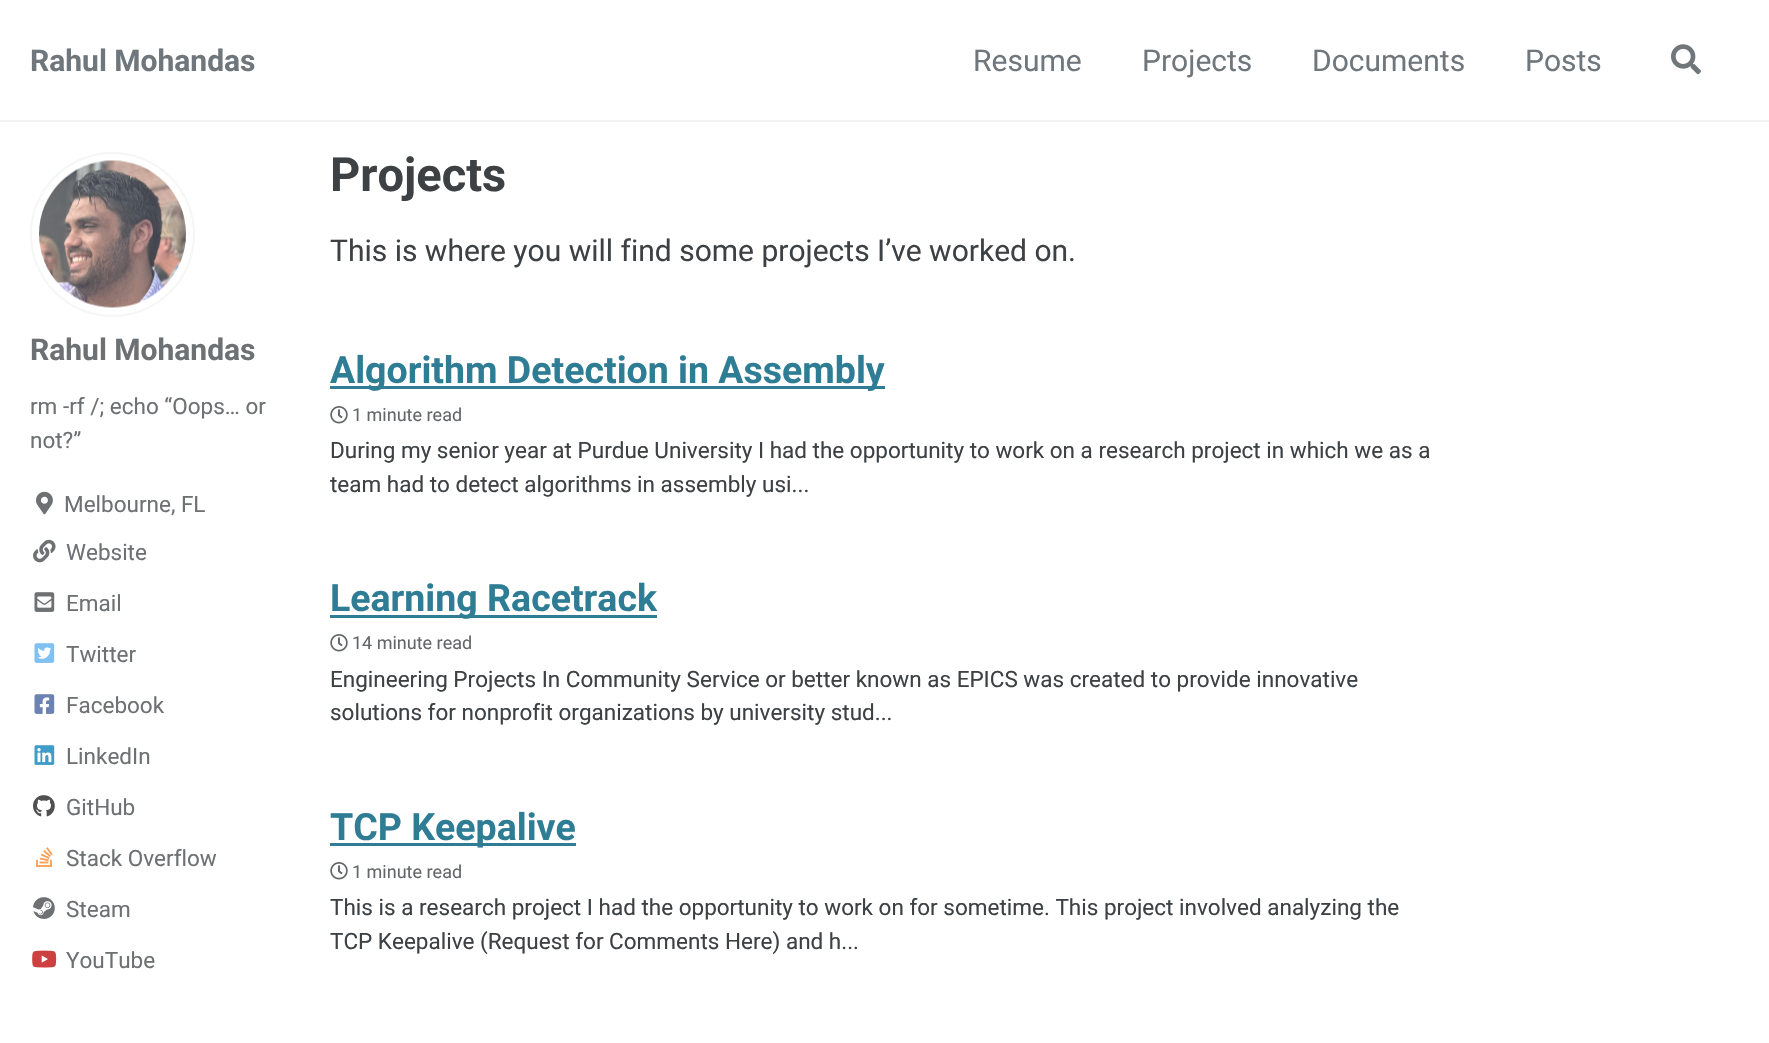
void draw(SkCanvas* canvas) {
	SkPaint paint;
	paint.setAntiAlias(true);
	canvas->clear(0xffffffff);
	paint.setColor(0xfff2f3f3);
	canvas->drawRect(SkRect::MakeXYWH(0, 120, 1769, 2), paint);
	SkFont f1(fontMgr->matchFamilyStyle("Roboto", SkFontStyle::Bold()), 30);
	f1.setSubpixel(true);
	paint.setColor(0xff6f777d);
	canvas->drawString("Rahul Mohandas", 30, 71, f1, paint);
	SkFont f2(fontMgr->matchFamilyStyle("Roboto", SkFontStyle::Normal()), 30);
	f2.setSubpixel(true);
	canvas->drawString("Resume", 973, 71, f2, paint);
	canvas->drawString("Projects", 1142, 71, f2, paint);
	canvas->drawString("Documents", 1312, 71, f2, paint);
	canvas->drawString("Posts", 1525, 71, f2, paint);
	canvas->drawImageRect(SkImages::DeferredFromEncodedData(SkData::MakeFromFileName("img1.png")), SkRect::MakeXYWH(1671, 44, 30, 31), SkSamplingOptions());
	paint.setStroke(true);
	paint.setStrokeWidth(2);
	paint.setColor(0xfff5f6f6);
	canvas->drawCircle(112.5, 234.5, 81.5, paint);
	canvas->drawImageRect(SkImages::DeferredFromEncodedData(SkData::MakeFromFileName("img2.png")), SkRect::MakeXYWH(39, 160, 147, 148), SkSamplingOptions());
	paint.setStroke(false);
	paint.setColor(0xff6e7173);
	canvas->drawString("Rahul Mohandas", 30, 360, f1, paint);
	SkFont f3(fontMgr->matchFamilyStyle("Roboto", SkFontStyle::Normal()), 22.5);
	f3.setSubpixel(true);
	canvas->drawString("rm -rf /; echo “Oops… or", 30, 414, f3, paint);
	canvas->drawString("not?”", 30, 448, f3, paint);
	canvas->drawImageRect(SkImages::DeferredFromEncodedData(SkData::MakeFromFileName("img3.png")), SkRect::MakeXYWH(36, 491, 17, 24), SkSamplingOptions());
	canvas->drawString("Melbourne, FL", 64, 512, f3, paint);
	canvas->drawImageRect(SkImages::DeferredFromEncodedData(SkData::MakeFromFileName("img4.png")), SkRect::MakeXYWH(33, 539, 23, 24), SkSamplingOptions());
	canvas->drawString("Website", 66, 560, f3, paint);
	canvas->drawImageRect(SkImages::DeferredFromEncodedData(SkData::MakeFromFileName("img5.png")), SkRect::MakeXYWH(34, 592, 21, 20), SkSamplingOptions());
	canvas->drawString("Email", 66, 611, f3, paint);
	canvas->drawImageRect(SkImages::DeferredFromEncodedData(SkData::MakeFromFileName("img6.png")), SkRect::MakeXYWH(34, 643, 21, 20), SkSamplingOptions());
	canvas->drawString("Twitter", 66, 662, f3, paint);
	canvas->drawImageRect(SkImages::DeferredFromEncodedData(SkData::MakeFromFileName("img7.png")), SkRect::MakeXYWH(34, 694, 21, 20), SkSamplingOptions());
	canvas->drawString("Facebook", 66, 713, f3, paint);
	canvas->drawImageRect(SkImages::DeferredFromEncodedData(SkData::MakeFromFileName("img8.png")), SkRect::MakeXYWH(34, 745, 21, 20), SkSamplingOptions());
	canvas->drawString("LinkedIn", 66, 764, f3, paint);
	canvas->drawImageRect(SkImages::DeferredFromEncodedData(SkData::MakeFromFileName("img9.png")), SkRect::MakeXYWH(33, 795, 22, 22), SkSamplingOptions());
	canvas->drawString("GitHub", 66, 815, f3, paint);
	canvas->drawImageRect(SkImages::DeferredFromEncodedData(SkData::MakeFromFileName("img10.png")), SkRect::MakeXYWH(36, 847, 17, 20), SkSamplingOptions());
	canvas->drawString("Stack Overflow", 66, 866, f3, paint);
	canvas->drawImageRect(SkImages::DeferredFromEncodedData(SkData::MakeFromFileName("img11.png")), SkRect::MakeXYWH(33, 897, 22, 22), SkSamplingOptions());
	canvas->drawString("Steam", 66, 917, f3, paint);
	canvas->drawImageRect(SkImages::DeferredFromEncodedData(SkData::MakeFromFileName("img12.png")), SkRect::MakeXYWH(32, 950, 25, 18), SkSamplingOptions());
	canvas->drawString("YouTube", 66, 968, f3, paint);
	SkFont f4(fontMgr->matchFamilyStyle("Roboto", SkFontStyle::Bold()), 47);
	f4.setSubpixel(true);
	paint.setColor(0xff3d4144);
	canvas->drawString("Projects", 330, 191, f4, paint);
	canvas->drawString("This is where you will find some projects I’ve worked on.", 330, 261, f2, paint);
	paint.setColor(0xff2f7d95);
	canvas->drawRect(SkRect::MakeXYWH(330, 386, 555, 3), paint);
	SkFont f5(fontMgr->matchFamilyStyle("Roboto", SkFontStyle::Bold()), 37.5);
	f5.setSubpixel(true);
	canvas->drawString("Algorithm Detection in Assembly", 330, 383, f5, paint);
	canvas->drawImageRect(SkImages::DeferredFromEncodedData(SkData::MakeFromFileName("img13.png")), SkRect::MakeXYWH(330, 406, 18, 18), SkSamplingOptions());
	SkFont f6(fontMgr->matchFamilyStyle("Roboto", SkFontStyle::Normal()), 18);
	f6.setSubpixel(true);
	paint.setColor(0xff646769);
	canvas->drawString("1 minute read", 352, 421, f6, paint);
	paint.setColor(0xff3d4144);
	canvas->drawString("During my senior year at Purdue University I had the opportunity to work on a research project in which we as a", 330, 458, f3, paint);
	canvas->drawString("team had to detect algorithms in assembly usi...", 330, 492, f3, paint);
	paint.setColor(0xff2f7d95);
	canvas->drawRect(SkRect::MakeXYWH(330, 615, 327, 3), paint);
	canvas->drawString("Learning Racetrack", 330, 611, f5, paint);
	canvas->drawImageRect(SkImages::DeferredFromEncodedData(SkData::MakeFromFileName("img13.png")), SkRect::MakeXYWH(330, 634, 18, 18), SkSamplingOptions());
	paint.setColor(0xff646769);
	canvas->drawString("14 minute read", 352, 649, f6, paint);
	paint.setColor(0xff3d4144);
	canvas->drawString("Engineering Projects In Community Service or better known as EPICS was created to provide innovative", 330, 687, f3, paint);
	canvas->drawString("solutions for nonprofit organizations by university stud...", 330, 720, f3, paint);
	paint.setColor(0xff2f7d95);
	canvas->drawRect(SkRect::MakeXYWH(330, 843, 246, 3), paint);
	canvas->drawString("TCP Keepalive", 330, 840, f5, paint);
	canvas->drawImageRect(SkImages::DeferredFromEncodedData(SkData::MakeFromFileName("img13.png")), SkRect::MakeXYWH(330, 862, 18, 18), SkSamplingOptions());
	paint.setColor(0xff646769);
	canvas->drawString("1 minute read", 352, 878, f6, paint);
	paint.setColor(0xff3d4144);
	canvas->drawString("This is a research project I had the opportunity to work on for sometime. This project involved analyzing the", 330, 915, f3, paint);
	canvas->drawString("TCP Keepalive (Request for Comments Here) and h...", 330, 949, f3, paint);
}
